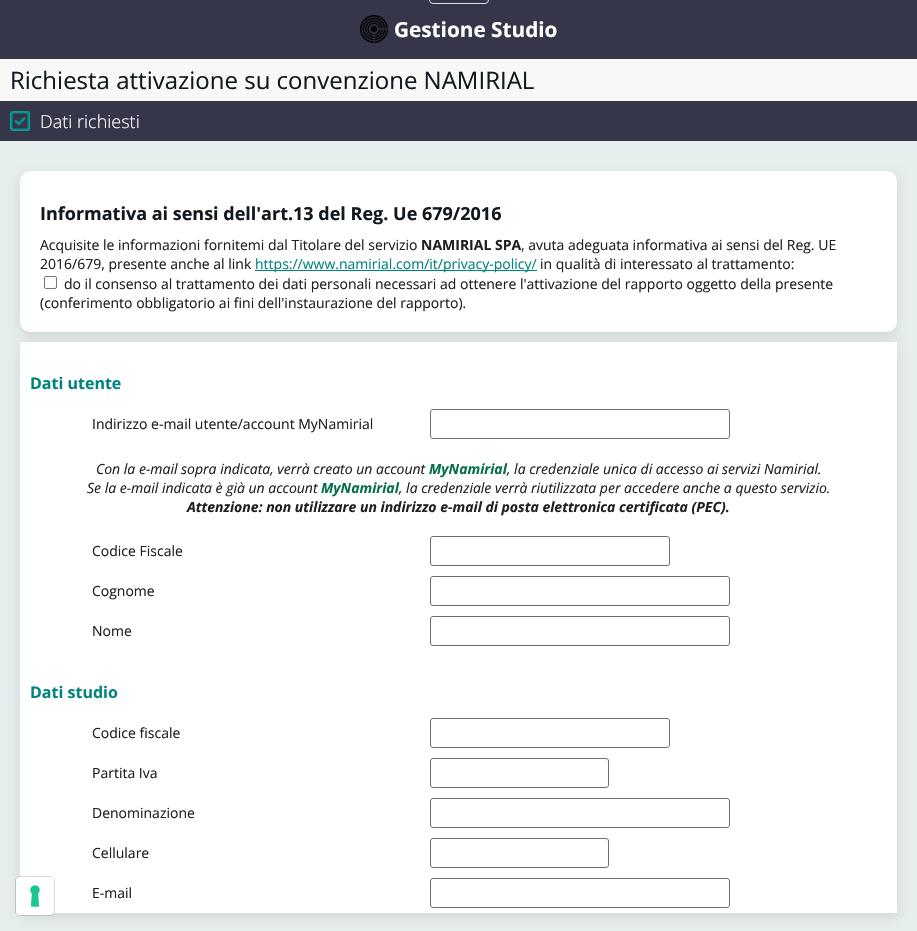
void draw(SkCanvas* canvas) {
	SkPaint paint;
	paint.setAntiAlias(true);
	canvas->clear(0xfff8f8f7);
	paint.setColor(0xff35364a);
	canvas->drawRect(SkRect::MakeXYWH(0, 0, 917, 59), paint);
	paint.setStroke(true);
	paint.setStrokeWidth(1);
	paint.setColor(0xffdddddd);
	canvas->drawRoundRect(SkRect::MakeXYWH(429.5, -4.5, 59, 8), 3.5, 3.5, paint);
	canvas->drawImageRect(SkImages::DeferredFromEncodedData(SkData::MakeFromFileName("img1.png")), SkRect::MakeXYWH(360, 15, 28, 28), SkSamplingOptions());
	SkFont f1(fontMgr->matchFamilyStyle("Open Sans", SkFontStyle::Bold()), 20.75);
	f1.setSubpixel(true);
	paint.setStroke(false);
	paint.setColor(0xffffffff);
	canvas->drawString("Gestione Studio", 394, 37, f1, paint);
	SkFont f2(fontMgr->matchFamilyStyle("Open Sans", SkFontStyle::Normal()), 24);
	f2.setSubpixel(true);
	paint.setColor(0xff111820);
	canvas->drawString("Richiesta attivazione su convenzione NAMIRIAL", 10, 89, f2, paint);
	paint.setColor(0xff35364a);
	canvas->drawRect(SkRect::MakeXYWH(0, 101, 917, 40), paint);
	canvas->drawImageRect(SkImages::DeferredFromEncodedData(SkData::MakeFromFileName("img2.png")), SkRect::MakeXYWH(10, 111, 20, 20), SkSamplingOptions());
	SkFont f3(fontMgr->matchFamilyStyle("Open Sans", SkFontStyle(300, SkFontStyle::kNormal_Width, SkFontStyle::kUpright_Slant)), 18);
	f3.setSubpixel(true);
	paint.setColor(0xffffffff);
	canvas->drawString("Dati richiesti", 40, 128, f3, paint);
	paint.setColor(0xffe6eeee);
	canvas->drawRect(SkRect::MakeXYWH(0, 141, 917, 790), paint);
	paint.setColor(0x1a000000);
	paint.setMaskFilter(SkMaskFilter::MakeBlur(kNormal_SkBlurStyle, 6));
	canvas->drawRoundRect(SkRect::MakeXYWH(20, 175, 877, 161), 10, 10, paint);
	paint.setMaskFilter(nullptr);
	paint.setColor(0xffffffff);
	canvas->drawRoundRect(SkRect::MakeXYWH(20, 171, 877, 161), 10, 10, paint);
	SkFont f4(fontMgr->matchFamilyStyle("Open Sans", SkFontStyle::Bold()), 18);
	f4.setSubpixel(true);
	paint.setColor(0xff111820);
	canvas->drawString("Informativa ai sensi dell'art.13 del Reg. Ue 679/2016", 40, 220, f4, paint);
	SkFont f5(fontMgr->matchFamilyStyle("Open Sans", SkFontStyle::Normal()), 14);
	f5.setSubpixel(true);
	paint.setColor(0xff202020);
	canvas->drawString("Acquisite le informazioni fornitemi dal Titolare del servizio", 40, 250, f5, paint);
	SkFont f6(fontMgr->matchFamilyStyle("Open Sans", SkFontStyle::Bold()), 14);
	f6.setSubpixel(true);
	canvas->drawString("NAMIRIAL SPA", 421, 250, f6, paint);
	canvas->drawString(", avuta adeguata informativa ai sensi del Reg. UE", 521, 250, f5, paint);
	canvas->drawString("2016/679, presente anche al link", 40, 269, f5, paint);
	paint.setColor(0xff00857e);
	canvas->drawRect(SkRect::MakeXYWH(255, 270, 282, 1), paint);
	canvas->drawString("https://www.namirial.com/it/privacy-policy/", 255, 269, f5, paint);
	paint.setColor(0xff202020);
	canvas->drawString("in qualità di interessato al trattamento:", 540, 269, f5, paint);
	paint.setStroke(true);
	paint.setColor(0xff767676);
	canvas->drawRoundRect(SkRect::MakeXYWH(44.5, 276.5, 12, 12), 1.5, 1.5, paint);
	paint.setStroke(false);
	paint.setColor(0xff202020);
	canvas->drawString("do il consenso al trattamento dei dati personali necessari ad ottenere l'attivazione del rapporto oggetto della presente", 64, 289, f5, paint);
	canvas->drawString("(conferimento obbligatorio ai fini dell'instaurazione del rapporto).", 40, 308, f5, paint);
	paint.setColor(0x1a000000);
	paint.setMaskFilter(SkMaskFilter::MakeBlur(kNormal_SkBlurStyle, 6));
	canvas->drawRect(SkRect::MakeXYWH(20, 346, 877, 571), paint);
	paint.setMaskFilter(nullptr);
	paint.setColor(0xffffffff);
	canvas->drawRect(SkRect::MakeXYWH(20, 342, 877, 571), paint);
	SkFont f7(fontMgr->matchFamilyStyle("Open Sans", SkFontStyle::Bold()), 16);
	f7.setSubpixel(true);
	paint.setColor(0xff00857e);
	canvas->drawString("Dati utente", 30, 389, f7, paint);
	paint.setColor(0xff202020);
	canvas->drawString("Indirizzo e-mail utente/account MyNamirial", 92, 429, f5, paint);
	paint.setStroke(true);
	paint.setColor(0xff686f77);
	canvas->drawRoundRect(SkRect::MakeXYWH(430.5, 409.5, 299, 29), 2.5, 2.5, paint);
	SkFont f8(fontMgr->matchFamilyStyle("Open Sans", SkFontStyle::Italic()), 14);
	f8.setSubpixel(true);
	paint.setStroke(false);
	paint.setColor(0xff202020);
	canvas->drawString("Con la e-mail sopra indicata, verrà creato un account", 96, 474, f8, paint);
	SkFont f9(fontMgr->matchFamilyStyle("Open Sans", SkFontStyle::BoldItalic()), 14);
	f9.setSubpixel(true);
	paint.setColor(0xff056e4b);
	canvas->drawString("MyNamirial", 429, 474, f9, paint);
	paint.setColor(0xff202020);
	canvas->drawString(", la credenziale unica di accesso ai servizi Namirial.", 507, 474, f8, paint);
	canvas->drawString("Se la e-mail indicata è già un account", 87, 493, f8, paint);
	paint.setColor(0xff056e4b);
	canvas->drawString("MyNamirial", 321, 493, f9, paint);
	paint.setColor(0xff202020);
	canvas->drawString(", la credenziale verrà riutilizzata per accedere anche a questo servizio.", 399, 493, f8, paint);
	canvas->drawString("Attenzione: non utilizzare un indirizzo e-mail di posta elettronica certificata (PEC).", 187, 512, f9, paint);
	canvas->drawString("Codice Fiscale", 92, 556, f5, paint);
	paint.setStroke(true);
	paint.setColor(0xff686f77);
	canvas->drawRoundRect(SkRect::MakeXYWH(430.5, 536.5, 239, 29), 2.5, 2.5, paint);
	paint.setStroke(false);
	paint.setColor(0xff202020);
	canvas->drawString("Cognome", 92, 596, f5, paint);
	paint.setStroke(true);
	paint.setColor(0xff686f77);
	canvas->drawRoundRect(SkRect::MakeXYWH(430.5, 576.5, 299, 29), 2.5, 2.5, paint);
	paint.setStroke(false);
	paint.setColor(0xff202020);
	canvas->drawString("Nome", 92, 636, f5, paint);
	paint.setStroke(true);
	paint.setColor(0xff686f77);
	canvas->drawRoundRect(SkRect::MakeXYWH(430.5, 616.5, 299, 29), 2.5, 2.5, paint);
	paint.setStroke(false);
	paint.setColor(0xff00857e);
	canvas->drawString("Dati studio", 30, 698, f7, paint);
	paint.setColor(0xff202020);
	canvas->drawString("Codice fiscale", 92, 738, f5, paint);
	paint.setStroke(true);
	paint.setColor(0xff686f77);
	canvas->drawRoundRect(SkRect::MakeXYWH(430.5, 718.5, 239, 29), 2.5, 2.5, paint);
	paint.setStroke(false);
	paint.setColor(0xff202020);
	canvas->drawString("Partita Iva", 92, 778, f5, paint);
	paint.setStroke(true);
	paint.setColor(0xff686f77);
	canvas->drawRoundRect(SkRect::MakeXYWH(430.5, 758.5, 178, 29), 2.5, 2.5, paint);
	paint.setStroke(false);
	paint.setColor(0xff202020);
	canvas->drawString("Denominazione", 92, 818, f5, paint);
	paint.setStroke(true);
	paint.setColor(0xff686f77);
	canvas->drawRoundRect(SkRect::MakeXYWH(430.5, 798.5, 299, 29), 2.5, 2.5, paint);
	paint.setStroke(false);
	paint.setColor(0xff202020);
	canvas->drawString("Cellulare", 92, 858, f5, paint);
	paint.setStroke(true);
	paint.setColor(0xff686f77);
	canvas->drawRoundRect(SkRect::MakeXYWH(430.5, 838.5, 178, 29), 2.5, 2.5, paint);
	paint.setStroke(false);
	paint.setColor(0xff202020);
	canvas->drawString("E-mail", 92, 898, f5, paint);
	paint.setStroke(true);
	paint.setColor(0xff686f77);
	canvas->drawRoundRect(SkRect::MakeXYWH(430.5, 878.5, 299, 29), 2.5, 2.5, paint);
	paint.setColor(0x26000000);
	canvas->drawRoundRect(SkRect::MakeXYWH(15.5, 876.5, 39, 39), 4.5, 4.5, paint);
	paint.setStroke(false);
	paint.setColor(0xffffffff);
	canvas->drawRoundRect(SkRect::MakeXYWH(16, 877, 38, 38), 4, 4, paint);
	canvas->drawImageRect(SkImages::DeferredFromEncodedData(SkData::MakeFromFileName("img3.png")), SkRect::MakeXYWH(30, 885, 10, 22), SkSamplingOptions());
}
